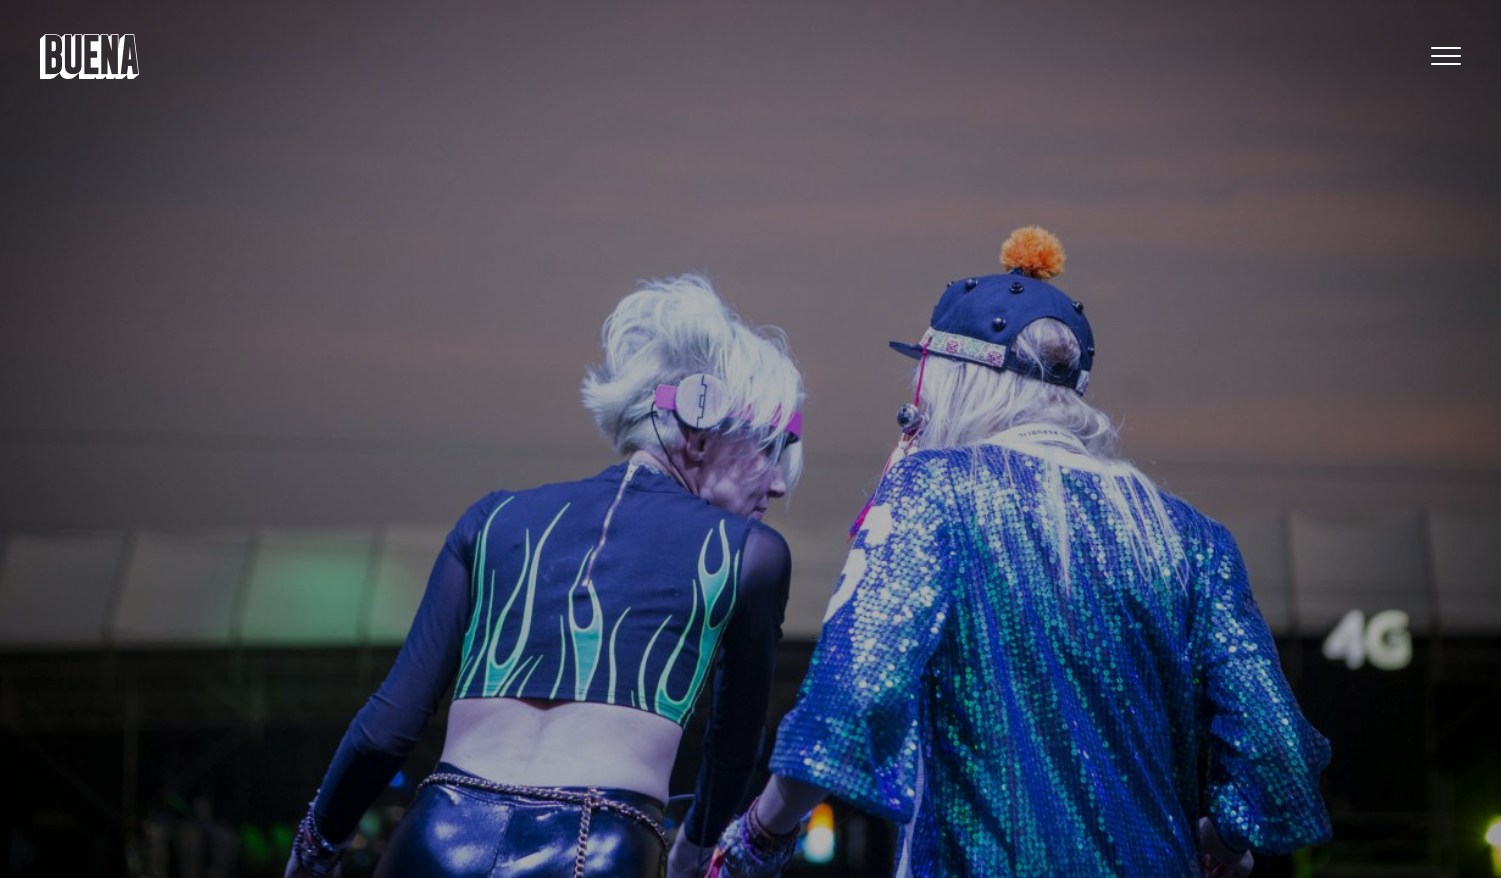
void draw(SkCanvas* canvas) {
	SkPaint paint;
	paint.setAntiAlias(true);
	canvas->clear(0xffffffff);
	canvas->drawImageRect(SkImages::DeferredFromEncodedData(SkData::MakeFromFileName("img1.png")), SkRect::MakeXYWH(0, 0, 1501, 878), SkSamplingOptions());
	canvas->drawImageRect(SkImages::DeferredFromEncodedData(SkData::MakeFromFileName("img2.png")), SkRect::MakeXYWH(40, 34, 99, 45), SkSamplingOptions());
	paint.setColor(0xffffffff);
	canvas->drawRoundRect(SkRect::MakeXYWH(1431, 47, 30, 2), 1, 1, paint);
	canvas->drawRoundRect(SkRect::MakeXYWH(1431, 55, 30, 2), 1, 1, paint);
	canvas->drawRoundRect(SkRect::MakeXYWH(1431, 63, 30, 2), 1, 1, paint);
}
